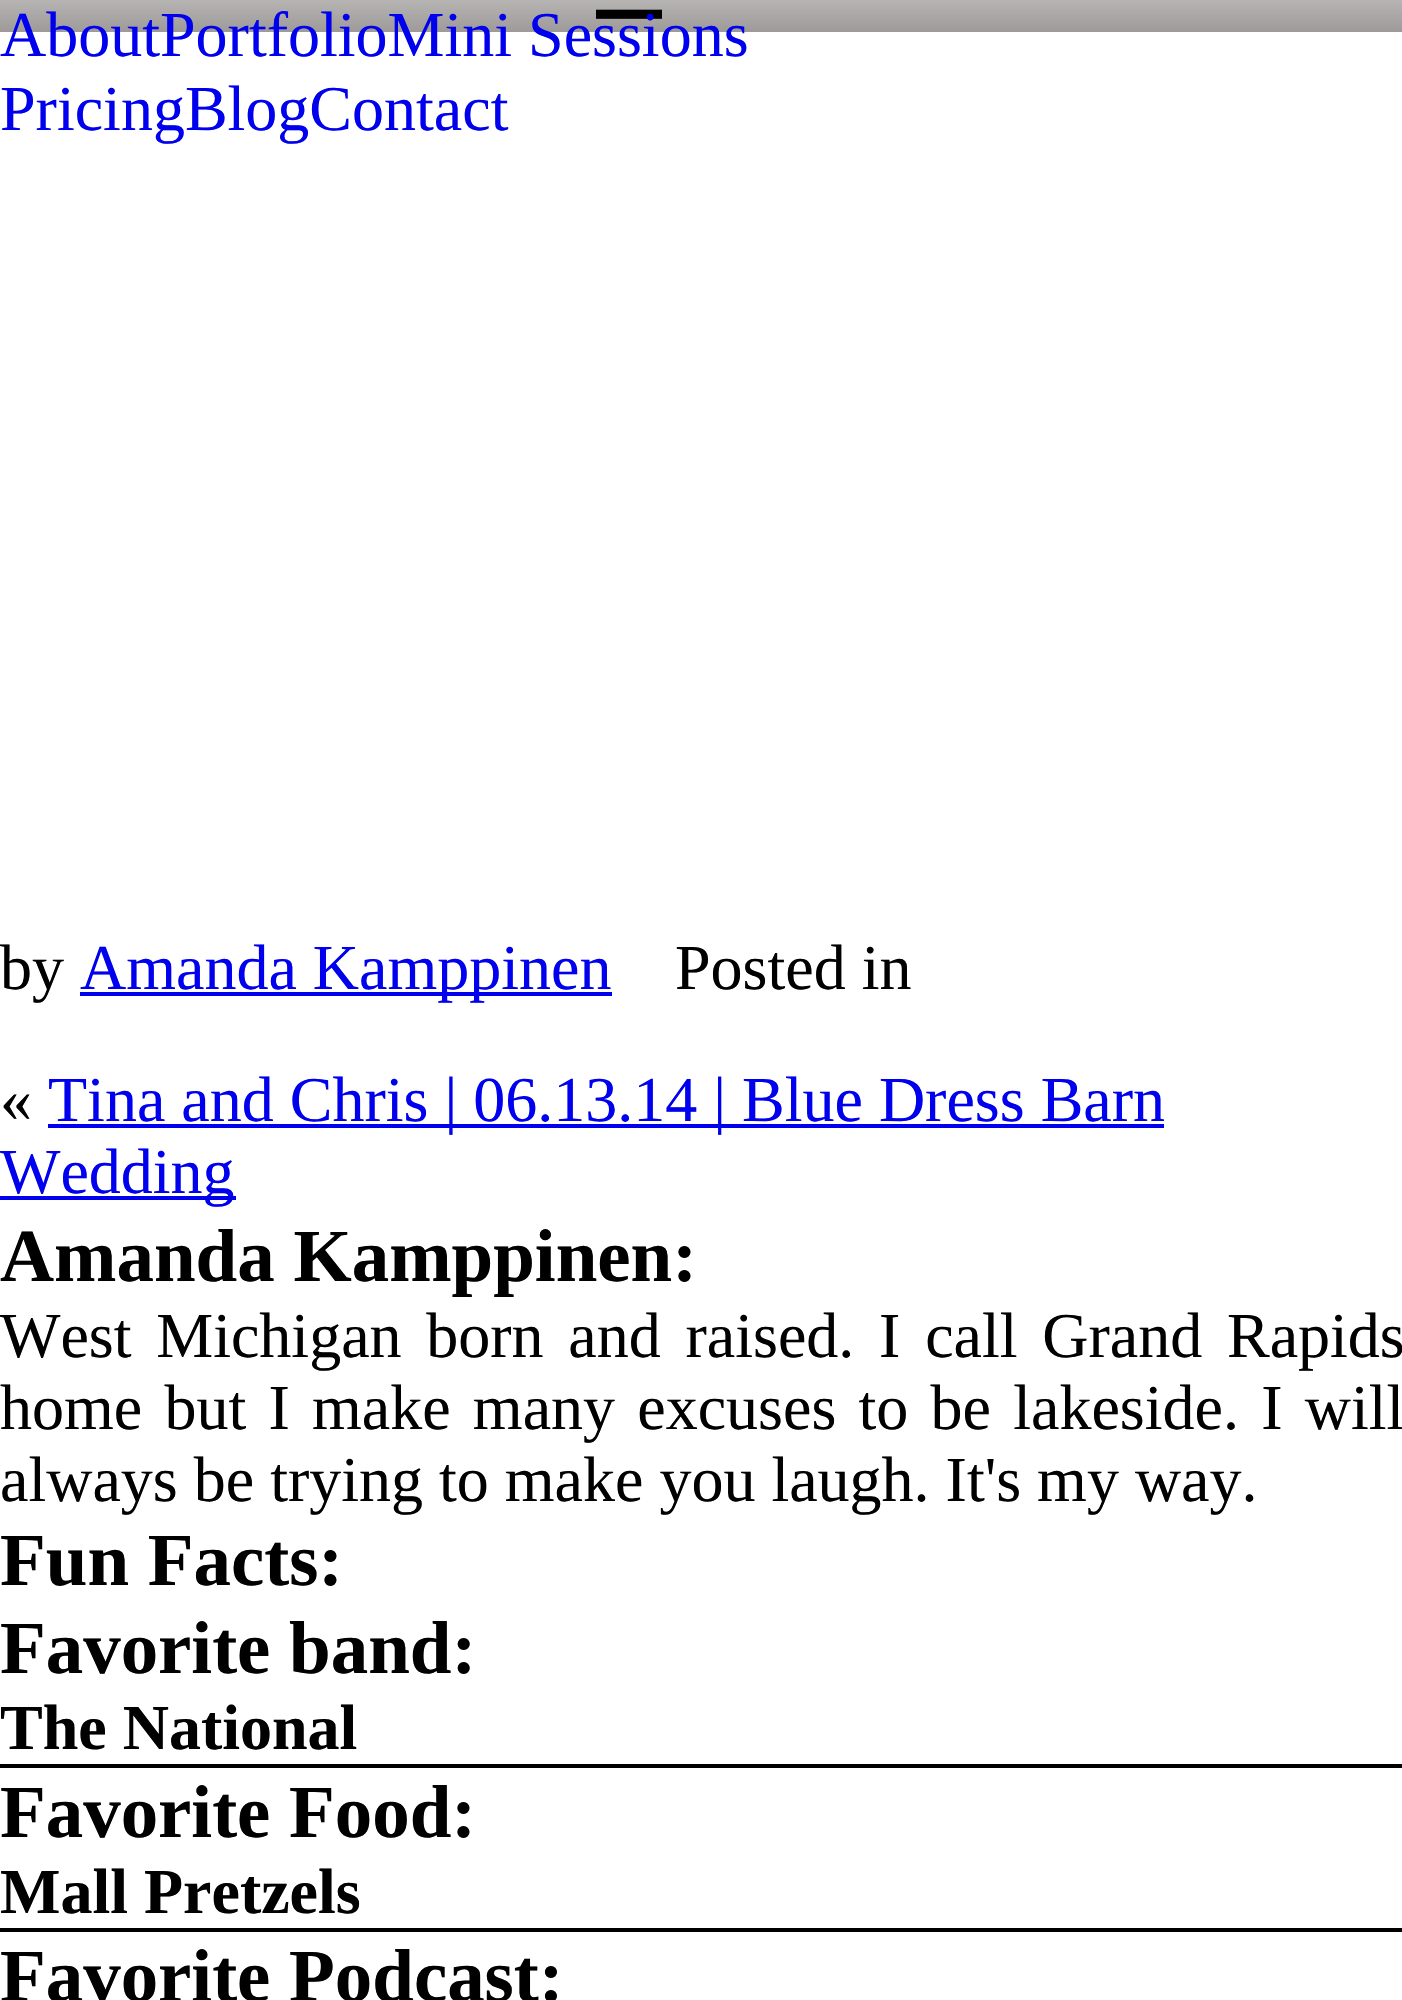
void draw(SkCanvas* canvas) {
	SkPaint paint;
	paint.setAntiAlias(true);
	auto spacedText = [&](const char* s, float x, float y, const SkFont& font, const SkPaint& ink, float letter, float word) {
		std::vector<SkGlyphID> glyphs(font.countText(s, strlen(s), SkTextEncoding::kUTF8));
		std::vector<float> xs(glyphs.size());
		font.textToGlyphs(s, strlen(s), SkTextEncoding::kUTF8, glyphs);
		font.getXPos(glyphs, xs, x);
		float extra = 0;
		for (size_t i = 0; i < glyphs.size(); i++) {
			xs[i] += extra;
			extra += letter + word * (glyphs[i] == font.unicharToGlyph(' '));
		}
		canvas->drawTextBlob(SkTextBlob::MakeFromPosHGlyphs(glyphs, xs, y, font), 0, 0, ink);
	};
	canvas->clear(0xffffffff);
	{
		const SkColor colors[] = {0xffffffff, 0xff9e9a9a};
		const float stops[] = {0.15, 1};
		const SkPoint ends[] = {{702, -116}, {702, 32}};
		paint.setShader(SkGradientShader::MakeLinear(ends, colors, stops, 2, SkTileMode::kClamp));
		paint.setAlpha(255);
	}
	canvas->drawRect(SkRect::MakeXYWH(0, 0, 1402, 32), paint);
	SkFont f1(fontMgr->matchFamilyStyle("Liberation Serif", SkFontStyle::Bold()), 128);
	f1.setSubpixel(true);
	paint.setShader(nullptr);
	paint.setColor(0xff000000);
	canvas->drawString("_", 597, 1, f1, paint);
	SkFont f2(fontMgr->matchFamilyStyle("Liberation Serif", SkFontStyle::Normal()), 64);
	f2.setSubpixel(true);
	paint.setColor(0xff0000ee);
	canvas->drawString("AboutPortfolioMini Sessions", 0, 56, f2, paint);
	canvas->drawString("PricingBlogContact", 0, 130, f2, paint);
	paint.setColor(0xff000000);
	canvas->drawString("by", 0, 989, f2, paint);
	paint.setColor(0xff0000ee);
	canvas->drawRect(SkRect::MakeXYWH(80, 992, 532, 4), paint);
	canvas->drawString("Amanda Kamppinen", 80, 989, f2, paint);
	paint.setColor(0xff000000);
	canvas->drawString("Posted in", 675, 989, f2, paint);
	canvas->drawString("«", 0, 1121, f2, paint);
	paint.setColor(0xff0000ee);
	canvas->drawRect(SkRect::MakeXYWH(48, 1124, 1116, 4), paint);
	canvas->drawString("Tina and Chris | 06.13.14 | Blue Dress Barn", 48, 1121, f2, paint);
	canvas->drawRect(SkRect::MakeXYWH(0, 1196, 236, 4), paint);
	canvas->drawString("Wedding", 0, 1193, f2, paint);
	SkFont f3(fontMgr->matchFamilyStyle("Liberation Serif", SkFontStyle::Bold()), 74.9);
	f3.setSubpixel(true);
	paint.setColor(0xff000000);
	canvas->drawString("Amanda Kamppinen:", 0, 1281, f3, paint);
	spacedText("West Michigan born and raised. I call Grand Rapids", 0, 1357, f2, paint, 0, 8.75);
	spacedText("home but I", 0, 1429, f2, paint, 0, 6.25);
	spacedText("make many excuses to be lakeside. I will", 312, 1429, f2, paint, 0, 6.25);
	canvas->drawString("always be trying to make you laugh. It's my way.", 0, 1501, f2, paint);
	canvas->drawString("Fun Facts:", 0, 1585, f3, paint);
	canvas->drawString("Favorite band:", 0, 1673, f3, paint);
	canvas->drawRect(SkRect::MakeXYWH(0, 1764, 1402, 4), paint);
	SkFont f4(fontMgr->matchFamilyStyle("Liberation Serif", SkFontStyle::Bold()), 64);
	f4.setSubpixel(true);
	canvas->drawString("The National", 0, 1749, f4, paint);
	canvas->drawString("Favorite Food:", 0, 1837, f3, paint);
	canvas->drawRect(SkRect::MakeXYWH(0, 1928, 1402, 4), paint);
	canvas->drawString("Mall Pretzels", 0, 1913, f4, paint);
	canvas->drawString("Favorite Podcast:", 0, 2001, f3, paint);
}
